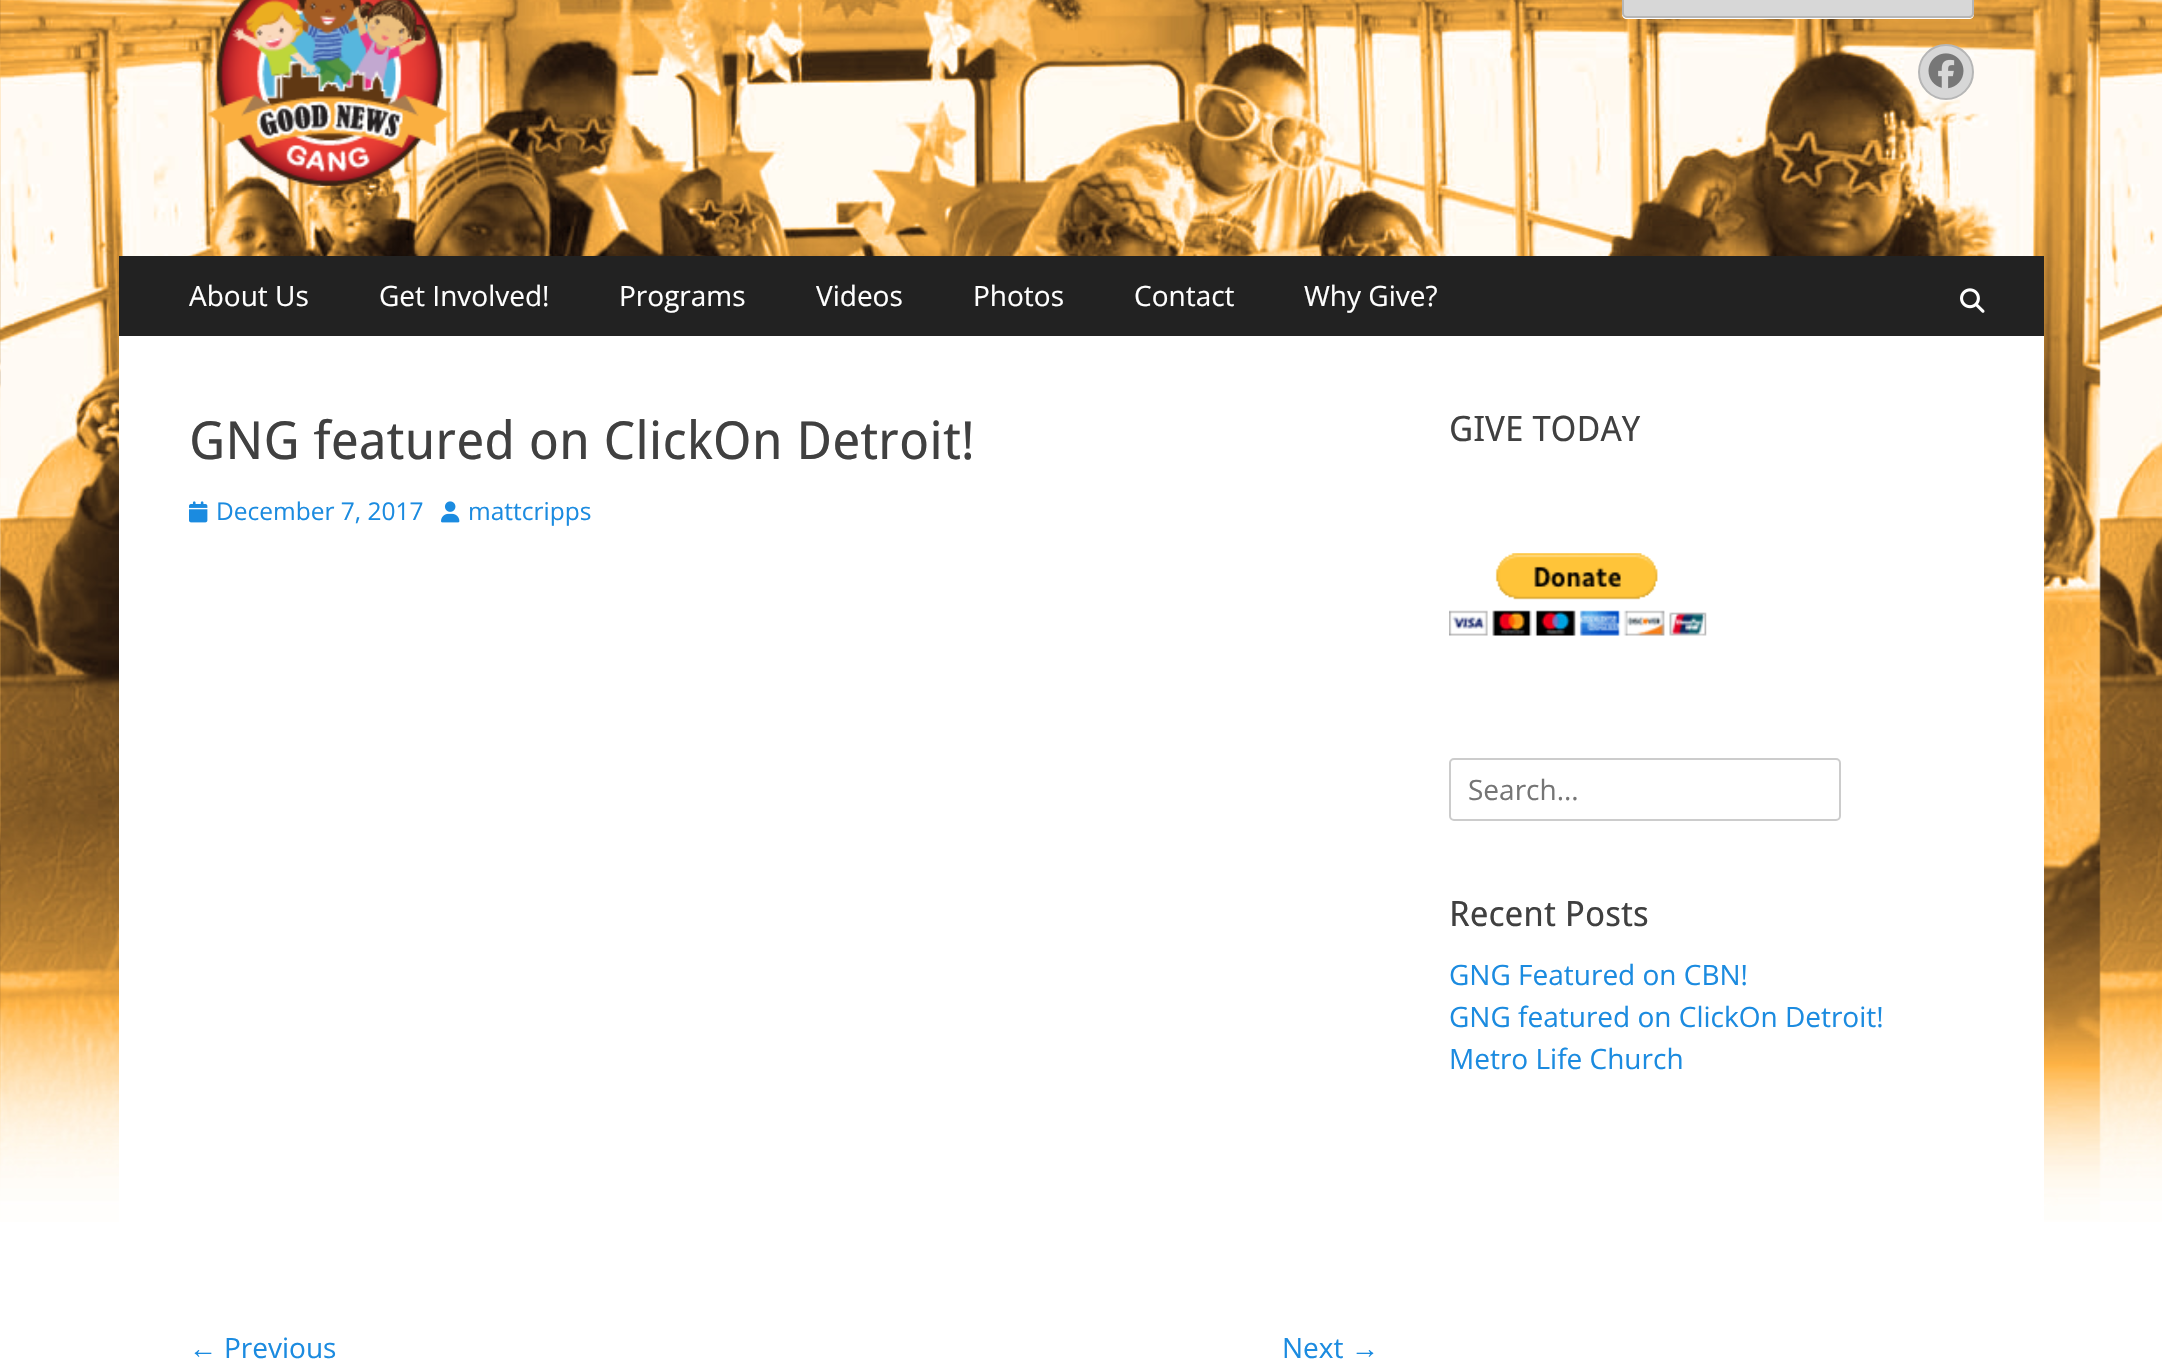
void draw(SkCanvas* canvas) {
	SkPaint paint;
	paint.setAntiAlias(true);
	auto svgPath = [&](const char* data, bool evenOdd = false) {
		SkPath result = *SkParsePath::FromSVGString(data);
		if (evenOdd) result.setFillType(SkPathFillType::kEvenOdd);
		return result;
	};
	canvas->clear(0xffffffff);
	canvas->drawImageRect(SkImages::DeferredFromEncodedData(SkData::MakeFromFileName("img1.png")), SkRect::MakeXYWH(0, 0, 2162, 1222), SkSamplingOptions());
	canvas->drawImageRect(SkImages::DeferredFromEncodedData(SkData::MakeFromFileName("img2.png")), SkRect::MakeXYWH(207, 0, 245, 186), SkSamplingOptions());
	paint.setColor(0xffffffff);
	canvas->drawPath(svgPath("M1622-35V14C1622 17 1624 19 1627 19H1969C1972 19 1974 17 1974 14V12C1974 15 1972 18 1969 18H1628C1625 18 1622 15 1622 12Z"), paint);
	paint.setColor(0xffd7d7d7);
	canvas->drawRoundRect(SkRect::MakeXYWH(1623, -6, 350, 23), 4, 4, paint);
	paint.setStroke(true);
	paint.setStrokeWidth(2);
	paint.setColor(0xffb6b6b6);
	canvas->drawRoundRect(SkRect::MakeXYWH(1623, -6, 350, 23), 4, 4, paint);
	paint.setStroke(false);
	paint.setColor(0xffd7d7d7);
	canvas->drawCircle(1946, 72, 27, paint);
	paint.setStroke(true);
	paint.setColor(0xffb6b6b6);
	canvas->drawCircle(1946, 72, 27, paint);
	canvas->drawImageRect(SkImages::DeferredFromEncodedData(SkData::MakeFromFileName("img3.png")), SkRect::MakeXYWH(1928, 53, 36, 36), SkSamplingOptions());
	paint.setStroke(false);
	paint.setColor(0xff222222);
	canvas->drawRect(SkRect::MakeXYWH(119, 256, 1925, 80), paint);
	SkFont f1(fontMgr->matchFamilyStyle("Open Sans", SkFontStyle::Normal()), 28);
	f1.setSubpixel(true);
	paint.setColor(0xffffffff);
	canvas->drawString("About Us", 189, 306, f1, paint);
	canvas->drawString("Get Involved!", 379, 306, f1, paint);
	canvas->drawString("Programs", 619, 306, f1, paint);
	canvas->drawString("Videos", 816, 306, f1, paint);
	canvas->drawString("Photos", 973, 306, f1, paint);
	canvas->drawString("Contact", 1134, 306, f1, paint);
	canvas->drawString("Why Give?", 1304, 306, f1, paint);
	canvas->drawImageRect(SkImages::DeferredFromEncodedData(SkData::MakeFromFileName("img4.png")), SkRect::MakeXYWH(1960, 288, 25, 25), SkSamplingOptions());
	canvas->drawRect(SkRect::MakeXYWH(119, 336, 1925, 886), paint);
	SkFont f2(fontMgr->matchFamilyStyle("Droid Sans", SkFontStyle::Normal()), 52.5);
	f2.setSubpixel(true);
	paint.setColor(0xff404040);
	canvas->drawString("GNG featured on ClickOn Detroit!", 189, 459, f2, paint);
	canvas->drawImageRect(SkImages::DeferredFromEncodedData(SkData::MakeFromFileName("img5.png")), SkRect::MakeXYWH(189, 501, 19, 22), SkSamplingOptions());
	SkFont f3(fontMgr->matchFamilyStyle("Open Sans", SkFontStyle::Normal()), 24.5);
	f3.setSubpixel(true);
	paint.setColor(0xff1b8be0);
	canvas->drawString("December 7, 2017", 216, 520, f3, paint);
	canvas->drawImageRect(SkImages::DeferredFromEncodedData(SkData::MakeFromFileName("img6.png")), SkRect::MakeXYWH(441, 501, 19, 22), SkSamplingOptions());
	canvas->drawString("mattcripps", 468, 520, f3, paint);
	SkFont f4(fontMgr->matchFamilyStyle("Liberation Sans", SkFontStyle::Normal()), 28);
	f4.setSubpixel(true);
	canvas->drawString("←", 189, 1358, f4, paint);
	canvas->drawString("Previous", 224, 1358, f1, paint);
	canvas->drawString("Next", 1282, 1358, f1, paint);
	canvas->drawString("→", 1351, 1358, f4, paint);
	SkFont f5(fontMgr->matchFamilyStyle("Droid Sans", SkFontStyle::Normal()), 35);
	f5.setSubpixel(true);
	paint.setColor(0xff404040);
	canvas->drawString("GIVE TODAY", 1449, 441, f5, paint);
	canvas->drawImageRect(SkImages::DeferredFromEncodedData(SkData::MakeFromFileName("img7.png")), SkRect::MakeXYWH(1449, 553, 258, 83), SkSamplingOptions());
	paint.setStroke(true);
	paint.setColor(0xffcccccc);
	canvas->drawRoundRect(SkRect::MakeXYWH(1450, 759, 390, 61), 4, 4, paint);
	paint.setStroke(false);
	paint.setColor(0xff757575);
	canvas->drawString("Search...", 1468, 800, f1, paint);
	paint.setColor(0xff404040);
	canvas->drawString("Recent Posts", 1449, 926, f5, paint);
	paint.setColor(0xff1b8be0);
	canvas->drawString("GNG Featured on CBN!", 1449, 985, f1, paint);
	canvas->drawString("GNG featured on ClickOn Detroit!", 1449, 1027, f1, paint);
	canvas->drawString("Metro Life Church", 1449, 1069, f1, paint);
}
